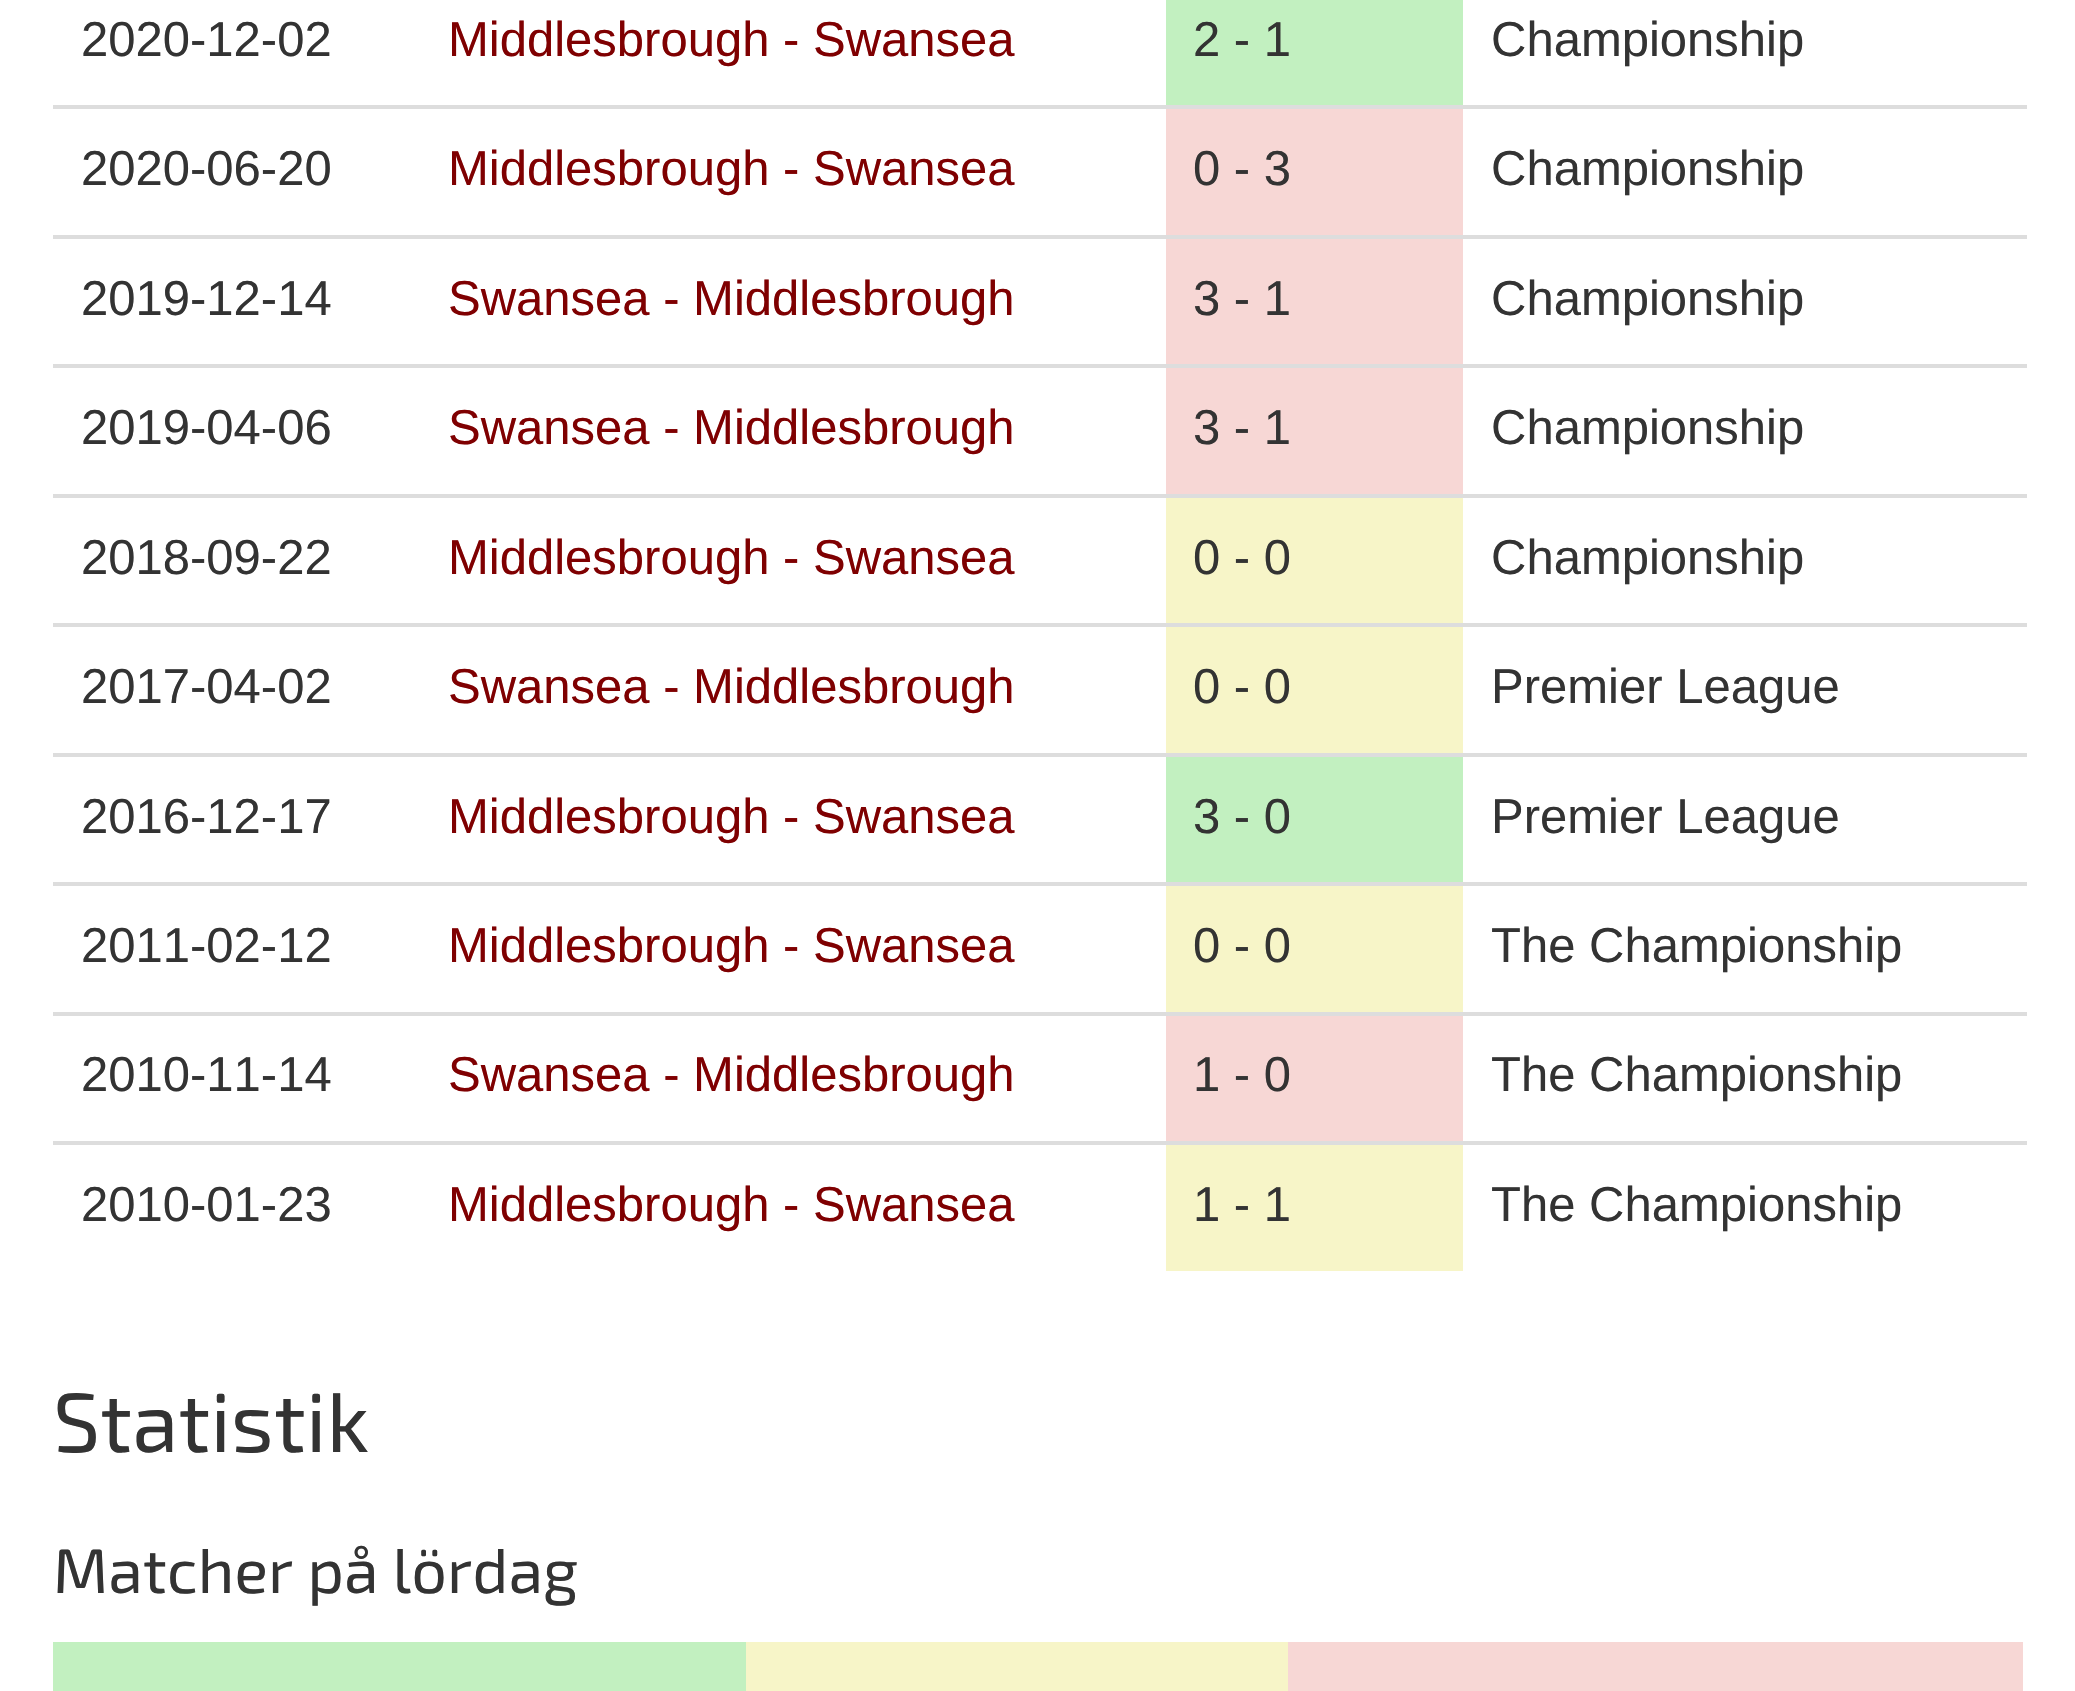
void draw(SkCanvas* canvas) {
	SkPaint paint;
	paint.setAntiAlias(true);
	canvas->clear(0xffffffff);
	SkFont f1(fontMgr->matchFamilyStyle("Liberation Sans", SkFontStyle::Normal()), 49);
	f1.setSubpixel(true);
	paint.setColor(0xff333333);
	canvas->drawString("2020-12-02", 81, 56, f1, paint);
	paint.setColor(0xff7f0001);
	canvas->drawString("Middlesbrough - Swansea", 448, 56, f1, paint);
	paint.setColor(0xffc2f0c0);
	canvas->drawRect(SkRect::MakeXYWH(1166, 0, 297, 105), paint);
	paint.setColor(0xff333333);
	canvas->drawString("2 - 1", 1193, 56, f1, paint);
	canvas->drawString("Championship", 1491, 56, f1, paint);
	canvas->drawString("2020-06-20", 81, 185, f1, paint);
	paint.setColor(0xff7f0001);
	canvas->drawString("Middlesbrough - Swansea", 448, 185, f1, paint);
	paint.setColor(0xfff7d7d5);
	canvas->drawRect(SkRect::MakeXYWH(1166, 109, 297, 126), paint);
	paint.setColor(0xff333333);
	canvas->drawString("0 - 3", 1193, 185, f1, paint);
	paint.setColor(0xffdddddd);
	canvas->drawRect(SkRect::MakeXYWH(53, 105, 1974, 4), paint);
	paint.setColor(0xff333333);
	canvas->drawString("Championship", 1491, 185, f1, paint);
	canvas->drawString("2019-12-14", 81, 315, f1, paint);
	paint.setColor(0xff7f0001);
	canvas->drawString("Swansea - Middlesbrough", 448, 315, f1, paint);
	paint.setColor(0xfff7d7d5);
	canvas->drawRect(SkRect::MakeXYWH(1166, 239, 297, 125), paint);
	paint.setColor(0xff333333);
	canvas->drawString("3 - 1", 1193, 315, f1, paint);
	paint.setColor(0xffdddddd);
	canvas->drawRect(SkRect::MakeXYWH(53, 235, 1974, 4), paint);
	paint.setColor(0xff333333);
	canvas->drawString("Championship", 1491, 315, f1, paint);
	canvas->drawString("2019-04-06", 81, 444, f1, paint);
	paint.setColor(0xff7f0001);
	canvas->drawString("Swansea - Middlesbrough", 448, 444, f1, paint);
	paint.setColor(0xfff7d7d5);
	canvas->drawRect(SkRect::MakeXYWH(1166, 368, 297, 126), paint);
	paint.setColor(0xff333333);
	canvas->drawString("3 - 1", 1193, 444, f1, paint);
	paint.setColor(0xffdddddd);
	canvas->drawRect(SkRect::MakeXYWH(53, 364, 1974, 4), paint);
	paint.setColor(0xff333333);
	canvas->drawString("Championship", 1491, 444, f1, paint);
	canvas->drawString("2018-09-22", 81, 574, f1, paint);
	paint.setColor(0xff7f0001);
	canvas->drawString("Middlesbrough - Swansea", 448, 574, f1, paint);
	paint.setColor(0xfff7f5c8);
	canvas->drawRect(SkRect::MakeXYWH(1166, 498, 297, 125), paint);
	paint.setColor(0xff333333);
	canvas->drawString("0 - 0", 1193, 574, f1, paint);
	paint.setColor(0xffdddddd);
	canvas->drawRect(SkRect::MakeXYWH(53, 494, 1974, 4), paint);
	paint.setColor(0xff333333);
	canvas->drawString("Championship", 1491, 574, f1, paint);
	canvas->drawString("2017-04-02", 81, 703, f1, paint);
	paint.setColor(0xff7f0001);
	canvas->drawString("Swansea - Middlesbrough", 448, 703, f1, paint);
	paint.setColor(0xfff7f5c8);
	canvas->drawRect(SkRect::MakeXYWH(1166, 627, 297, 126), paint);
	paint.setColor(0xff333333);
	canvas->drawString("0 - 0", 1193, 703, f1, paint);
	paint.setColor(0xffdddddd);
	canvas->drawRect(SkRect::MakeXYWH(53, 623, 1974, 4), paint);
	paint.setColor(0xff333333);
	canvas->drawString("Premier League", 1491, 703, f1, paint);
	canvas->drawString("2016-12-17", 81, 833, f1, paint);
	paint.setColor(0xff7f0001);
	canvas->drawString("Middlesbrough - Swansea", 448, 833, f1, paint);
	paint.setColor(0xffc2f0c0);
	canvas->drawRect(SkRect::MakeXYWH(1166, 757, 297, 125), paint);
	paint.setColor(0xff333333);
	canvas->drawString("3 - 0", 1193, 833, f1, paint);
	paint.setColor(0xffdddddd);
	canvas->drawRect(SkRect::MakeXYWH(53, 753, 1974, 4), paint);
	paint.setColor(0xff333333);
	canvas->drawString("Premier League", 1491, 833, f1, paint);
	canvas->drawString("2011-02-12", 81, 962, f1, paint);
	paint.setColor(0xff7f0001);
	canvas->drawString("Middlesbrough - Swansea", 448, 962, f1, paint);
	paint.setColor(0xfff7f5c8);
	canvas->drawRect(SkRect::MakeXYWH(1166, 886, 297, 126), paint);
	paint.setColor(0xff333333);
	canvas->drawString("0 - 0", 1193, 962, f1, paint);
	paint.setColor(0xffdddddd);
	canvas->drawRect(SkRect::MakeXYWH(53, 882, 1974, 4), paint);
	paint.setColor(0xff333333);
	canvas->drawString("The Championship", 1491, 962, f1, paint);
	canvas->drawString("2010-11-14", 81, 1091, f1, paint);
	paint.setColor(0xff7f0001);
	canvas->drawString("Swansea - Middlesbrough", 448, 1091, f1, paint);
	paint.setColor(0xfff7d7d5);
	canvas->drawRect(SkRect::MakeXYWH(1166, 1016, 297, 125), paint);
	paint.setColor(0xff333333);
	canvas->drawString("1 - 0", 1193, 1091, f1, paint);
	paint.setColor(0xffdddddd);
	canvas->drawRect(SkRect::MakeXYWH(53, 1012, 1974, 4), paint);
	paint.setColor(0xff333333);
	canvas->drawString("The Championship", 1491, 1091, f1, paint);
	canvas->drawString("2010-01-23", 81, 1221, f1, paint);
	paint.setColor(0xff7f0001);
	canvas->drawString("Middlesbrough - Swansea", 448, 1221, f1, paint);
	paint.setColor(0xfff7f5c8);
	canvas->drawRect(SkRect::MakeXYWH(1166, 1145, 297, 126), paint);
	paint.setColor(0xff333333);
	canvas->drawString("1 - 1", 1193, 1221, f1, paint);
	paint.setColor(0xffdddddd);
	canvas->drawRect(SkRect::MakeXYWH(53, 1141, 1974, 4), paint);
	paint.setColor(0xff333333);
	canvas->drawString("The Championship", 1491, 1221, f1, paint);
	SkFont f2(fontMgr->matchFamilyStyle("Exo 2", SkFontStyle::Normal()), 84);
	f2.setSubpixel(true);
	canvas->drawString("Statistik", 53, 1452, f2, paint);
	SkFont f3(fontMgr->matchFamilyStyle("Exo 2", SkFontStyle::Normal()), 63);
	f3.setSubpixel(true);
	canvas->drawString("Matcher på lördag", 53, 1593, f3, paint);
	paint.setColor(0xffc2f0c0);
	canvas->drawRect(SkRect::MakeXYWH(53, 1642, 693, 49), paint);
	paint.setColor(0xfff7f5c8);
	canvas->drawRect(SkRect::MakeXYWH(746, 1642, 542, 49), paint);
	paint.setColor(0xfff7d7d5);
	canvas->drawRect(SkRect::MakeXYWH(1288, 1642, 735, 49), paint);
}
